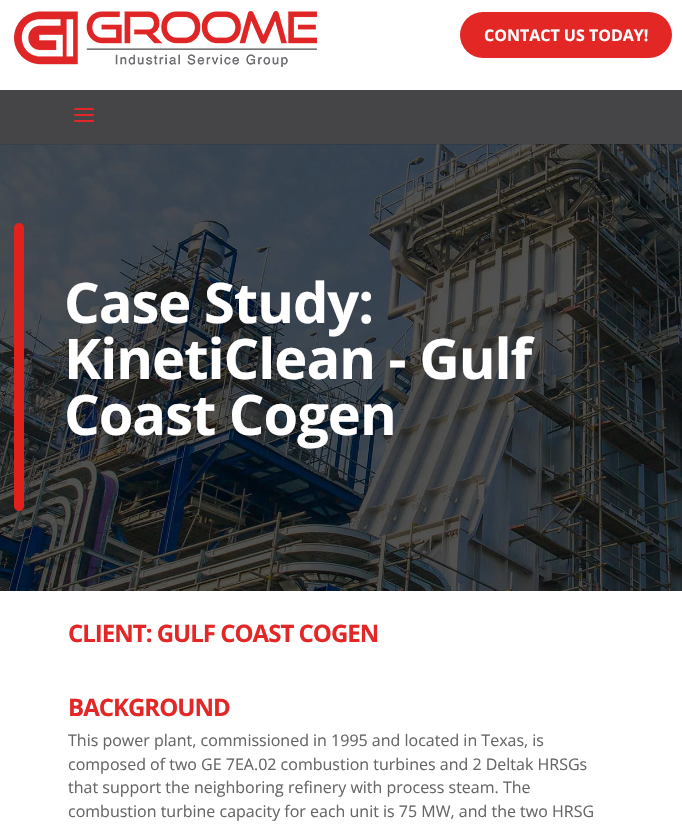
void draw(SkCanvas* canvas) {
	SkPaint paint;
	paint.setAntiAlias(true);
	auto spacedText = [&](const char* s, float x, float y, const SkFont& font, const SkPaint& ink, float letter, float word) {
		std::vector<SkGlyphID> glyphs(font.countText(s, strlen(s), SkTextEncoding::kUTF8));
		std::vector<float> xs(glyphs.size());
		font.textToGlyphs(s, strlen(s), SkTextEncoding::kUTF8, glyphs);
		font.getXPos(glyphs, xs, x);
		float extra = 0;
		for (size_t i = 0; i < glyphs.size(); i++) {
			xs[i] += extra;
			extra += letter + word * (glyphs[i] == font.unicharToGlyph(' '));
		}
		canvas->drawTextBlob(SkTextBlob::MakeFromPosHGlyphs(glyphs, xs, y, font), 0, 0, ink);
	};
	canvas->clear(0xffffffff);
	canvas->drawImageRect(SkImages::DeferredFromEncodedData(SkData::MakeFromFileName("img3.png")), SkRect::MakeXYWH(0, 144, 682, 447), SkSamplingOptions());
	paint.setColor(0x1a000000);
	canvas->drawRect(SkRect::MakeXYWH(0, 144, 682, 1), paint);
	paint.setColor(0xff454547);
	canvas->drawRect(SkRect::MakeXYWH(0, 90, 682, 54), paint);
	canvas->drawImageRect(SkImages::DeferredFromEncodedData(SkData::MakeFromFileName("img1.png")), SkRect::MakeXYWH(14, 11, 303, 56), SkSamplingOptions());
	paint.setColor(0xffe22725);
	canvas->drawRoundRect(SkRect::MakeXYWH(460, 12, 212, 46), 23, 23, paint);
	SkFont f1(fontMgr->matchFamilyStyle("Open Sans", SkFontStyle::Bold()), 16);
	f1.setSubpixel(true);
	paint.setColor(0xffffffff);
	canvas->drawString("CONTACT US TODAY!", 484, 41, f1, paint);
	canvas->drawImageRect(SkImages::DeferredFromEncodedData(SkData::MakeFromFileName("img2.png")), SkRect::MakeXYWH(74, 108, 20, 14), SkSamplingOptions());
	canvas->drawImageRect(SkImages::DeferredFromEncodedData(SkData::MakeFromFileName("img4.png")), SkRect::MakeXYWH(14, 223, 10, 288), SkSamplingOptions());
	SkFont f2(fontMgr->matchFamilyStyle("Open Sans", SkFontStyle::Bold()), 56);
	f2.setSubpixel(true);
	spacedText("Case Study:", 64, 323, f2, paint, -1, 0);
	spacedText("KinetiClean - Gulf", 64, 379, f2, paint, -1, 0);
	spacedText("Coast Cogen", 64, 435, f2, paint, -1, 0);
	SkFont f3(fontMgr->matchFamilyStyle("Open Sans", SkFontStyle::Bold()), 24);
	f3.setSubpixel(true);
	paint.setColor(0xffe22726);
	spacedText("CLIENT: GULF COAST COGEN", 68, 642, f3, paint, -1, 0);
	spacedText("BACKGROUND", 68, 716, f3, paint, -1, 0);
	SkFont f4(fontMgr->matchFamilyStyle("Open Sans", SkFontStyle::Normal()), 16);
	f4.setSubpixel(true);
	paint.setColor(0xff666666);
	canvas->drawString("This power plant, commissioned in 1995 and located in Texas, is", 68, 746, f4, paint);
	canvas->drawString("composed of two GE 7EA.02 combustion turbines and 2 Deltak HRSGs", 68, 770, f4, paint);
	canvas->drawString("that support the neighboring refinery with process steam. The", 68, 793, f4, paint);
	canvas->drawString("combustion turbine capacity for each unit is 75 MW, and the two HRSG", 68, 817, f4, paint);
}
